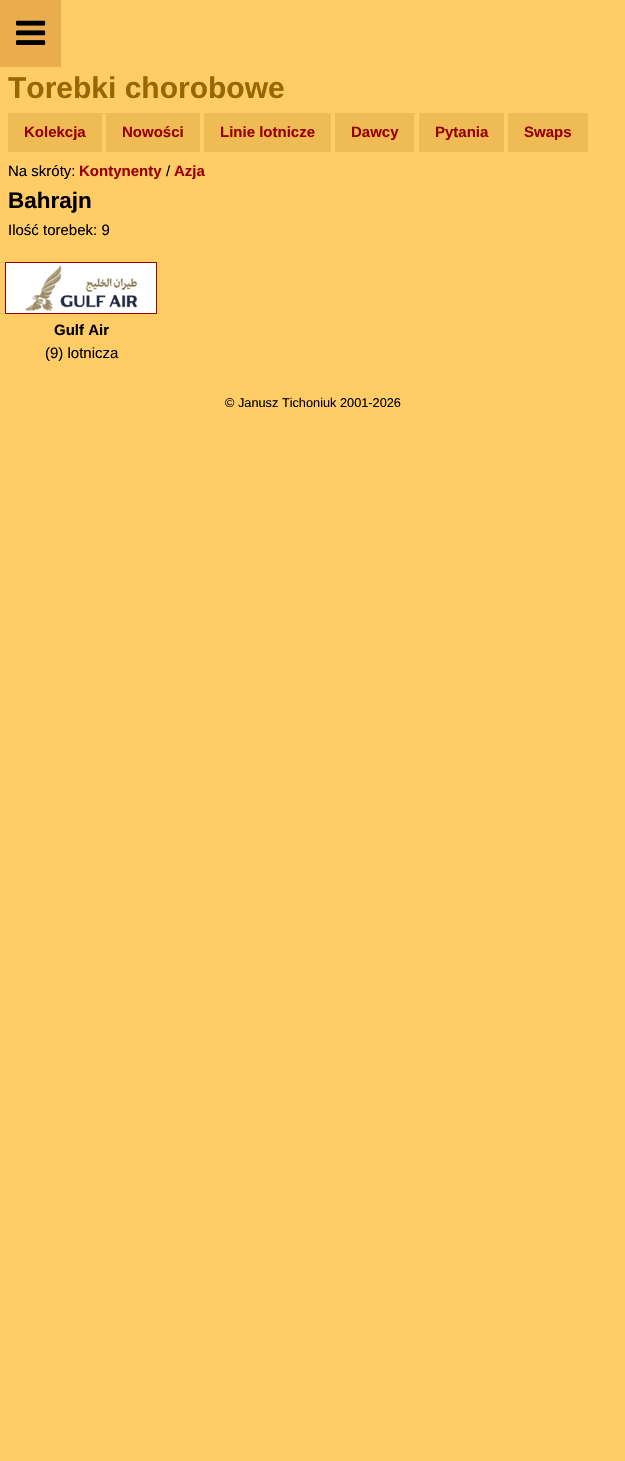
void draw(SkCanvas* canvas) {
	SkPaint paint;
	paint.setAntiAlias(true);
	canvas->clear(0xffffcc66);
	paint.setColor(0xffe9ad4e);
	canvas->drawRect(SkRect::MakeXYWH(0, 0, 61, 67), paint);
	canvas->drawImageRect(SkImages::DeferredFromEncodedData(SkData::MakeFromFileName("img1.png")), SkRect::MakeXYWH(16, 20, 30, 25), SkSamplingOptions());
	SkFont f1(fontMgr->matchFamilyStyle("Liberation Sans", SkFontStyle::Bold()), 30);
	f1.setSubpixel(true);
	paint.setColor(0xff996600);
	canvas->drawString("Torebki chorobowe", 8, 98, f1, paint);
	paint.setColor(0xffeebb55);
	canvas->drawRect(SkRect::MakeXYWH(8, 113, 94, 39), paint);
	SkFont f2(fontMgr->matchFamilyStyle("Liberation Sans", SkFontStyle::Bold()), 15);
	f2.setSubpixel(true);
	paint.setColor(0xff990000);
	canvas->drawString("Kolekcja", 24, 137, f2, paint);
	paint.setColor(0xffeebb55);
	canvas->drawRect(SkRect::MakeXYWH(106, 113, 94, 39), paint);
	paint.setColor(0xff990000);
	canvas->drawString("Nowości", 122, 137, f2, paint);
	paint.setColor(0xffeebb55);
	canvas->drawRect(SkRect::MakeXYWH(204, 113, 127, 39), paint);
	paint.setColor(0xff990000);
	canvas->drawString("Linie lotnicze", 220, 137, f2, paint);
	paint.setColor(0xffeebb55);
	canvas->drawRect(SkRect::MakeXYWH(335, 113, 79, 39), paint);
	paint.setColor(0xff990000);
	canvas->drawString("Dawcy", 351, 137, f2, paint);
	paint.setColor(0xffeebb55);
	canvas->drawRect(SkRect::MakeXYWH(419, 113, 85, 39), paint);
	paint.setColor(0xff990000);
	canvas->drawString("Pytania", 435, 137, f2, paint);
	paint.setColor(0xffeebb55);
	canvas->drawRect(SkRect::MakeXYWH(508, 113, 80, 39), paint);
	paint.setColor(0xff990000);
	canvas->drawString("Swaps", 524, 137, f2, paint);
	SkFont f3(fontMgr->matchFamilyStyle("Liberation Sans", SkFontStyle::Normal()), 15);
	f3.setSubpixel(true);
	paint.setColor(0xff000000);
	canvas->drawString("Na skróty:", 8, 176, f3, paint);
	paint.setColor(0xff990000);
	canvas->drawString("Kontynenty", 79, 176, f2, paint);
	paint.setColor(0xff000000);
	canvas->drawString("/", 166, 176, f3, paint);
	paint.setColor(0xff990000);
	canvas->drawString("Azja", 174, 176, f2, paint);
	SkFont f4(fontMgr->matchFamilyStyle("Liberation Sans", SkFontStyle::Bold()), 22.5);
	f4.setSubpixel(true);
	paint.setColor(0xff000000);
	canvas->drawString("Bahrajn", 8, 208, f4, paint);
	canvas->drawString("Ilość torebek: 9", 8, 235, f3, paint);
	paint.setStroke(true);
	paint.setStrokeWidth(1);
	paint.setColor(0xff990000);
	canvas->drawRect(SkRect::MakeXYWH(5.5, 262.5, 151, 51), paint);
	canvas->drawImageRect(SkImages::DeferredFromEncodedData(SkData::MakeFromFileName("img2.png")), SkRect::MakeXYWH(6, 263, 150, 50), SkSamplingOptions());
	paint.setStroke(false);
	paint.setColor(0xff000000);
	canvas->drawString("Gulf Air", 54, 335, f2, paint);
	canvas->drawString("(9) lotnicza", 45, 358, f3, paint);
	SkFont f5(fontMgr->matchFamilyStyle("Liberation Sans", SkFontStyle::Normal()), 12.75);
	f5.setSubpixel(true);
	canvas->drawString("© Janusz Tichoniuk 2001-2026", 225, 407, f5, paint);
}
